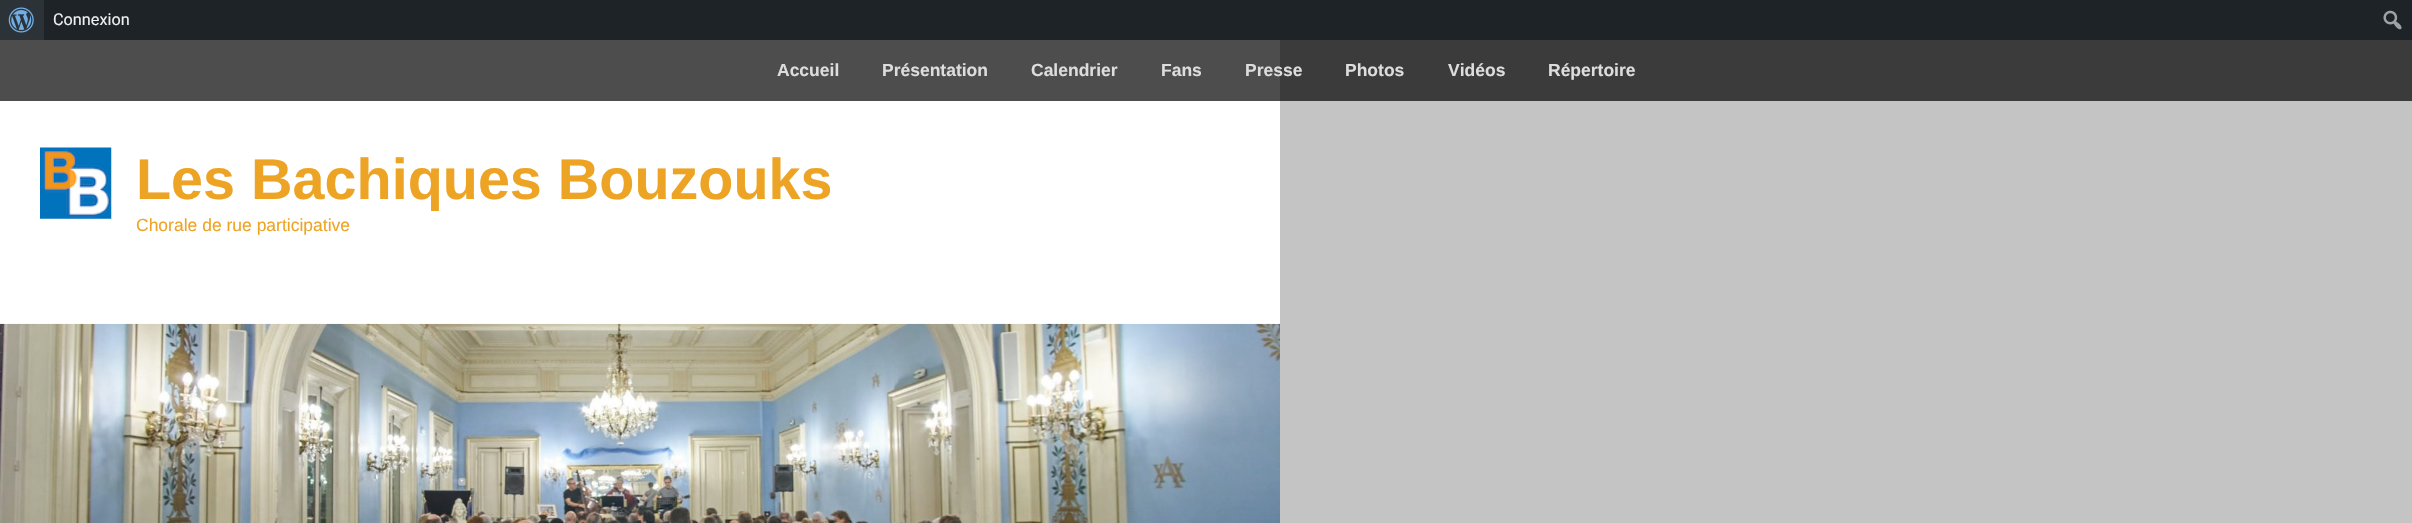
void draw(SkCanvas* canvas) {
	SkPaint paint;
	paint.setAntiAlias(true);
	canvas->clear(0xffc4c4c4);
	paint.setColor(0xff3b3b3b);
	canvas->drawRect(SkRect::MakeXYWH(1280, 40, 1132, 61), paint);
	paint.setColor(0xff1d2327);
	canvas->drawRect(SkRect::MakeXYWH(44, 0, 2368, 40), paint);
	paint.setColor(0xff2c3338);
	canvas->drawRect(SkRect::MakeXYWH(0, 0, 44, 40), paint);
	canvas->drawImageRect(SkImages::DeferredFromEncodedData(SkData::MakeFromFileName("img1.png")), SkRect::MakeXYWH(8, 7, 26, 26), SkSamplingOptions());
	SkFont f1(fontMgr->matchFamilyStyle("Roboto", SkFontStyle::Normal()), 16.25);
	f1.setSubpixel(true);
	paint.setColor(0xfff0f0f1);
	canvas->drawString("Connexion", 53, 25, f1, paint);
	canvas->drawImageRect(SkImages::DeferredFromEncodedData(SkData::MakeFromFileName("img2.png")), SkRect::MakeXYWH(2383, 10, 19, 20), SkSamplingOptions());
	paint.setColor(0xff4d4d4d);
	canvas->drawRect(SkRect::MakeXYWH(0, 40, 1280, 61), paint);
	SkFont f2(fontMgr->matchFamilyStyle("Liberation Sans", SkFontStyle::Bold()), 17.5);
	f2.setSubpixel(true);
	paint.setColor(0xffdddddd);
	canvas->drawString("Accueil", 777, 76, f2, paint);
	canvas->drawString("Présentation", 882, 76, f2, paint);
	canvas->drawString("Calendrier", 1031, 76, f2, paint);
	canvas->drawString("Fans", 1161, 76, f2, paint);
	canvas->drawString("Presse", 1245, 76, f2, paint);
	canvas->drawString("Photos", 1345, 76, f2, paint);
	canvas->drawString("Vidéos", 1448, 76, f2, paint);
	canvas->drawString("Répertoire", 1548, 76, f2, paint);
	paint.setColor(0xffffffff);
	canvas->drawRect(SkRect::MakeXYWH(0, 101, 1280, 223), paint);
	canvas->drawImageRect(SkImages::DeferredFromEncodedData(SkData::MakeFromFileName("img3.png")), SkRect::MakeXYWH(40, 147, 72, 72), SkSamplingOptions());
	SkFont f3(fontMgr->matchFamilyStyle("Liberation Sans", SkFontStyle::Bold()), 57.5);
	f3.setSubpixel(true);
	paint.setColor(0xffeda425);
	canvas->drawString("Les Bachiques Bouzouks", 136, 199, f3, paint);
	SkFont f4(fontMgr->matchFamilyStyle("Liberation Sans", SkFontStyle::Normal()), 17.5);
	f4.setSubpixel(true);
	canvas->drawString("Chorale de rue participative", 136, 231, f4, paint);
	canvas->drawImageRect(SkImages::DeferredFromEncodedData(SkData::MakeFromFileName("img4.png")), SkRect::MakeXYWH(0, 323, 1280, 200), SkSamplingOptions());
}
